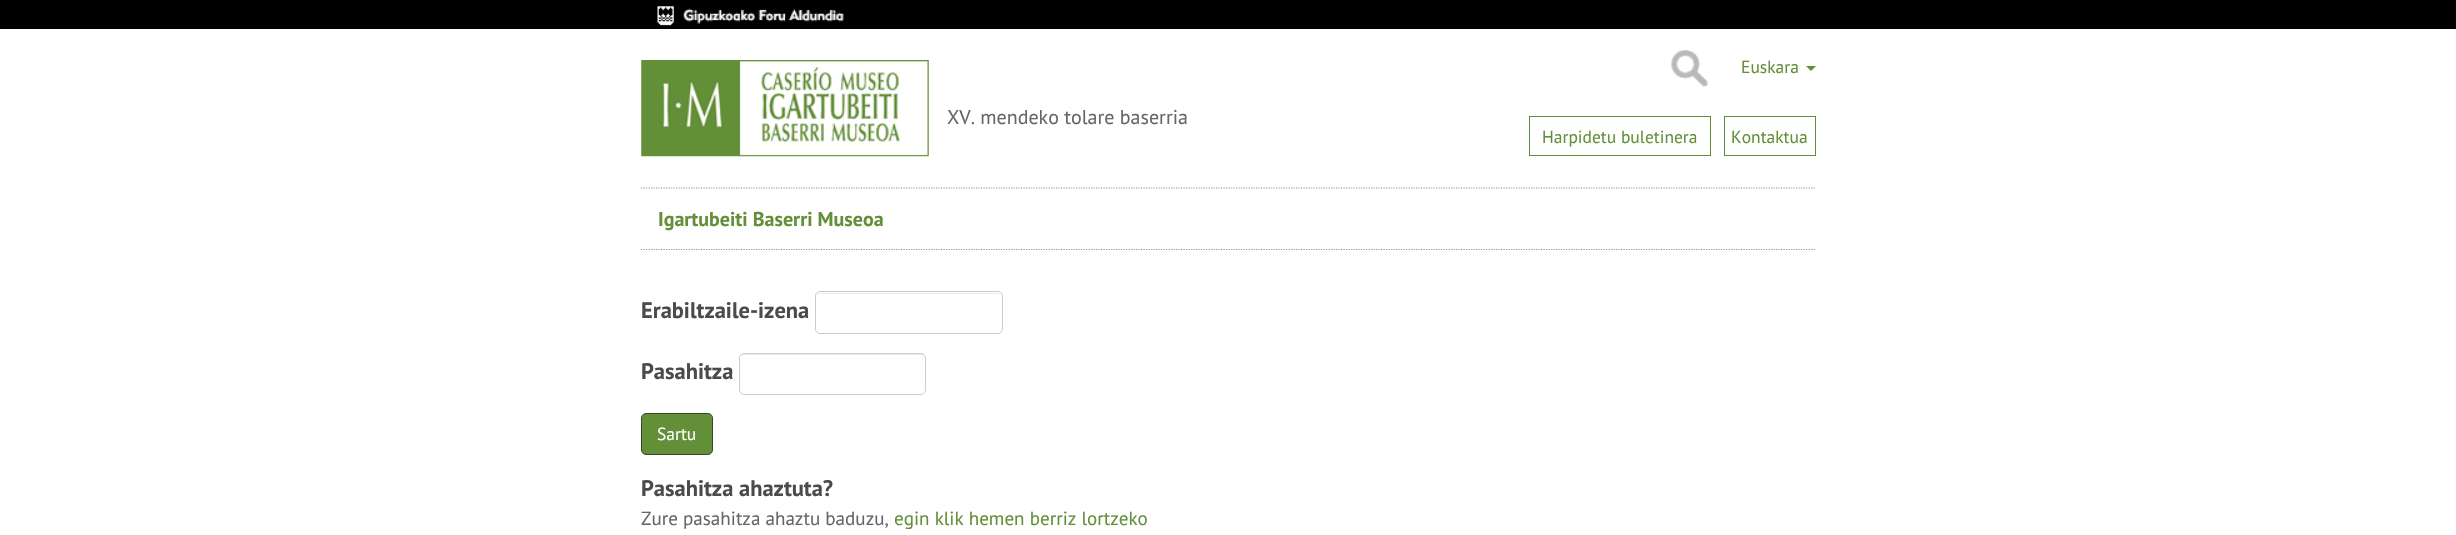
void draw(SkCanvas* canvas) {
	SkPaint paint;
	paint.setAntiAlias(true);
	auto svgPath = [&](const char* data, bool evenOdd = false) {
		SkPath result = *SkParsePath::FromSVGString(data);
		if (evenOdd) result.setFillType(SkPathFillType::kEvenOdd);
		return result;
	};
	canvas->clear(0xffffffff);
	paint.setColor(0xff000000);
	canvas->drawRect(SkRect::MakeXYWH(0, 0, 2456, 29), paint);
	canvas->drawImageRect(SkImages::DeferredFromEncodedData(SkData::MakeFromFileName("img1.png")), SkRect::MakeXYWH(657, 6, 187, 20), SkSamplingOptions());
	canvas->drawImageRect(SkImages::DeferredFromEncodedData(SkData::MakeFromFileName("img2.png")), SkRect::MakeXYWH(641, 60, 288, 97), SkSamplingOptions());
	canvas->drawImageRect(SkImages::DeferredFromEncodedData(SkData::MakeFromFileName("img3.png")), SkRect::MakeXYWH(1666, 50, 42, 37), SkSamplingOptions());
	SkFont f1(fontMgr->matchFamilyStyle("PT Sans", SkFontStyle::Normal()), 20);
	f1.setSubpixel(true);
	paint.setColor(0xff666666);
	canvas->drawString("XV. mendeko tolare baserria", 947, 124, f1, paint);
	SkFont f2(fontMgr->matchFamilyStyle("PT Sans", SkFontStyle::Normal()), 17.5);
	f2.setSubpixel(true);
	paint.setColor(0xff638f38);
	canvas->drawString("Euskara", 1741, 73, f2, paint);
	canvas->drawPath(svgPath("M1806 66H1816L1811 71Z"), paint);
	paint.setStroke(true);
	paint.setStrokeWidth(1);
	canvas->drawRect(SkRect::MakeXYWH(1529.5, 116.5, 181, 39), paint);
	paint.setStroke(false);
	canvas->drawString("Harpidetu buletinera", 1542, 143, f2, paint);
	paint.setStroke(true);
	canvas->drawRect(SkRect::MakeXYWH(1724.5, 116.5, 91, 39), paint);
	paint.setStroke(false);
	canvas->drawString("Kontaktua", 1731, 143, f2, paint);
	paint.setStroke(true);
	paint.setStrokeWidth(1.2);
	paint.setColor(0xff999999);
	paint.setPathEffect(SkDashPathEffect::Make({{1.25f, 1.25f}}, 0));
	canvas->drawPath(svgPath("M641 188H1816"), paint);
	paint.setPathEffect(nullptr);
	paint.setPathEffect(SkDashPathEffect::Make({{1.25f, 1.25f}}, 0));
	canvas->drawPath(svgPath("M641 249.5H1816"), paint);
	paint.setPathEffect(nullptr);
	paint.setStroke(false);
	paint.setColor(0xffffffff);
	canvas->drawRect(SkRect::MakeXYWH(641, 248, 260, 1), paint);
	SkFont f3(fontMgr->matchFamilyStyle("PT Sans", SkFontStyle::Bold()), 20);
	f3.setSubpixel(true);
	paint.setColor(0xff638f38);
	canvas->drawString("Igartubeiti Baserri Museoa", 658, 226, f3, paint);
	SkFont f4(fontMgr->matchFamilyStyle("PT Sans", SkFontStyle::Bold()), 22.5);
	f4.setSubpixel(true);
	paint.setColor(0xff4b4b4b);
	canvas->drawString("Erabiltzaile-izena", 641, 318, f4, paint);
	paint.setColor(0xffececec);
	canvas->drawPath(svgPath("M820 294H998C1000 294 1001 295 1001 298C1001 295 1000 293 997 293H819C817 294 816 296 816 298C816 295 818 294 820 294Z"), paint);
	paint.setStroke(true);
	paint.setStrokeWidth(1);
	paint.setColor(0xffcccccc);
	canvas->drawRoundRect(SkRect::MakeXYWH(815.5, 291.5, 187, 42), 4.5, 4.5, paint);
	paint.setStroke(false);
	paint.setColor(0xff4b4b4b);
	canvas->drawString("Pasahitza", 641, 379, f4, paint);
	paint.setColor(0xffececec);
	canvas->drawPath(svgPath("M744 355H921C923 355 925 357 925 359C925 356 924 354 921 354H743C741 355 740 357 740 359C740 357 742 355 744 355Z"), paint);
	paint.setStroke(true);
	paint.setColor(0xffcccccc);
	canvas->drawRoundRect(SkRect::MakeXYWH(739.5, 353.5, 186, 41), 4.5, 4.5, paint);
	paint.setStroke(false);
	paint.setColor(0xff638f38);
	canvas->drawRoundRect(SkRect::MakeXYWH(641.5, 413.5, 71, 41), 4.5, 4.5, paint);
	paint.setStroke(true);
	paint.setColor(0xff374826);
	canvas->drawRoundRect(SkRect::MakeXYWH(641.5, 413.5, 71, 41), 4.5, 4.5, paint);
	paint.setStroke(false);
	paint.setColor(0xffffffff);
	canvas->drawString("Sartu", 657, 440, f2, paint);
	paint.setColor(0xff4b4b4b);
	canvas->drawString("Pasahitza ahaztuta?", 641, 496, f4, paint);
	SkFont f5(fontMgr->matchFamilyStyle("PT Sans", SkFontStyle::Normal()), 19.1);
	f5.setSubpixel(true);
	paint.setColor(0xff666666);
	canvas->drawString("Zure pasahitza ahaztu baduzu,", 641, 525, f5, paint);
	paint.setColor(0xff638f38);
	canvas->drawString("egin klik hemen berriz lortzeko", 894, 525, f5, paint);
}
